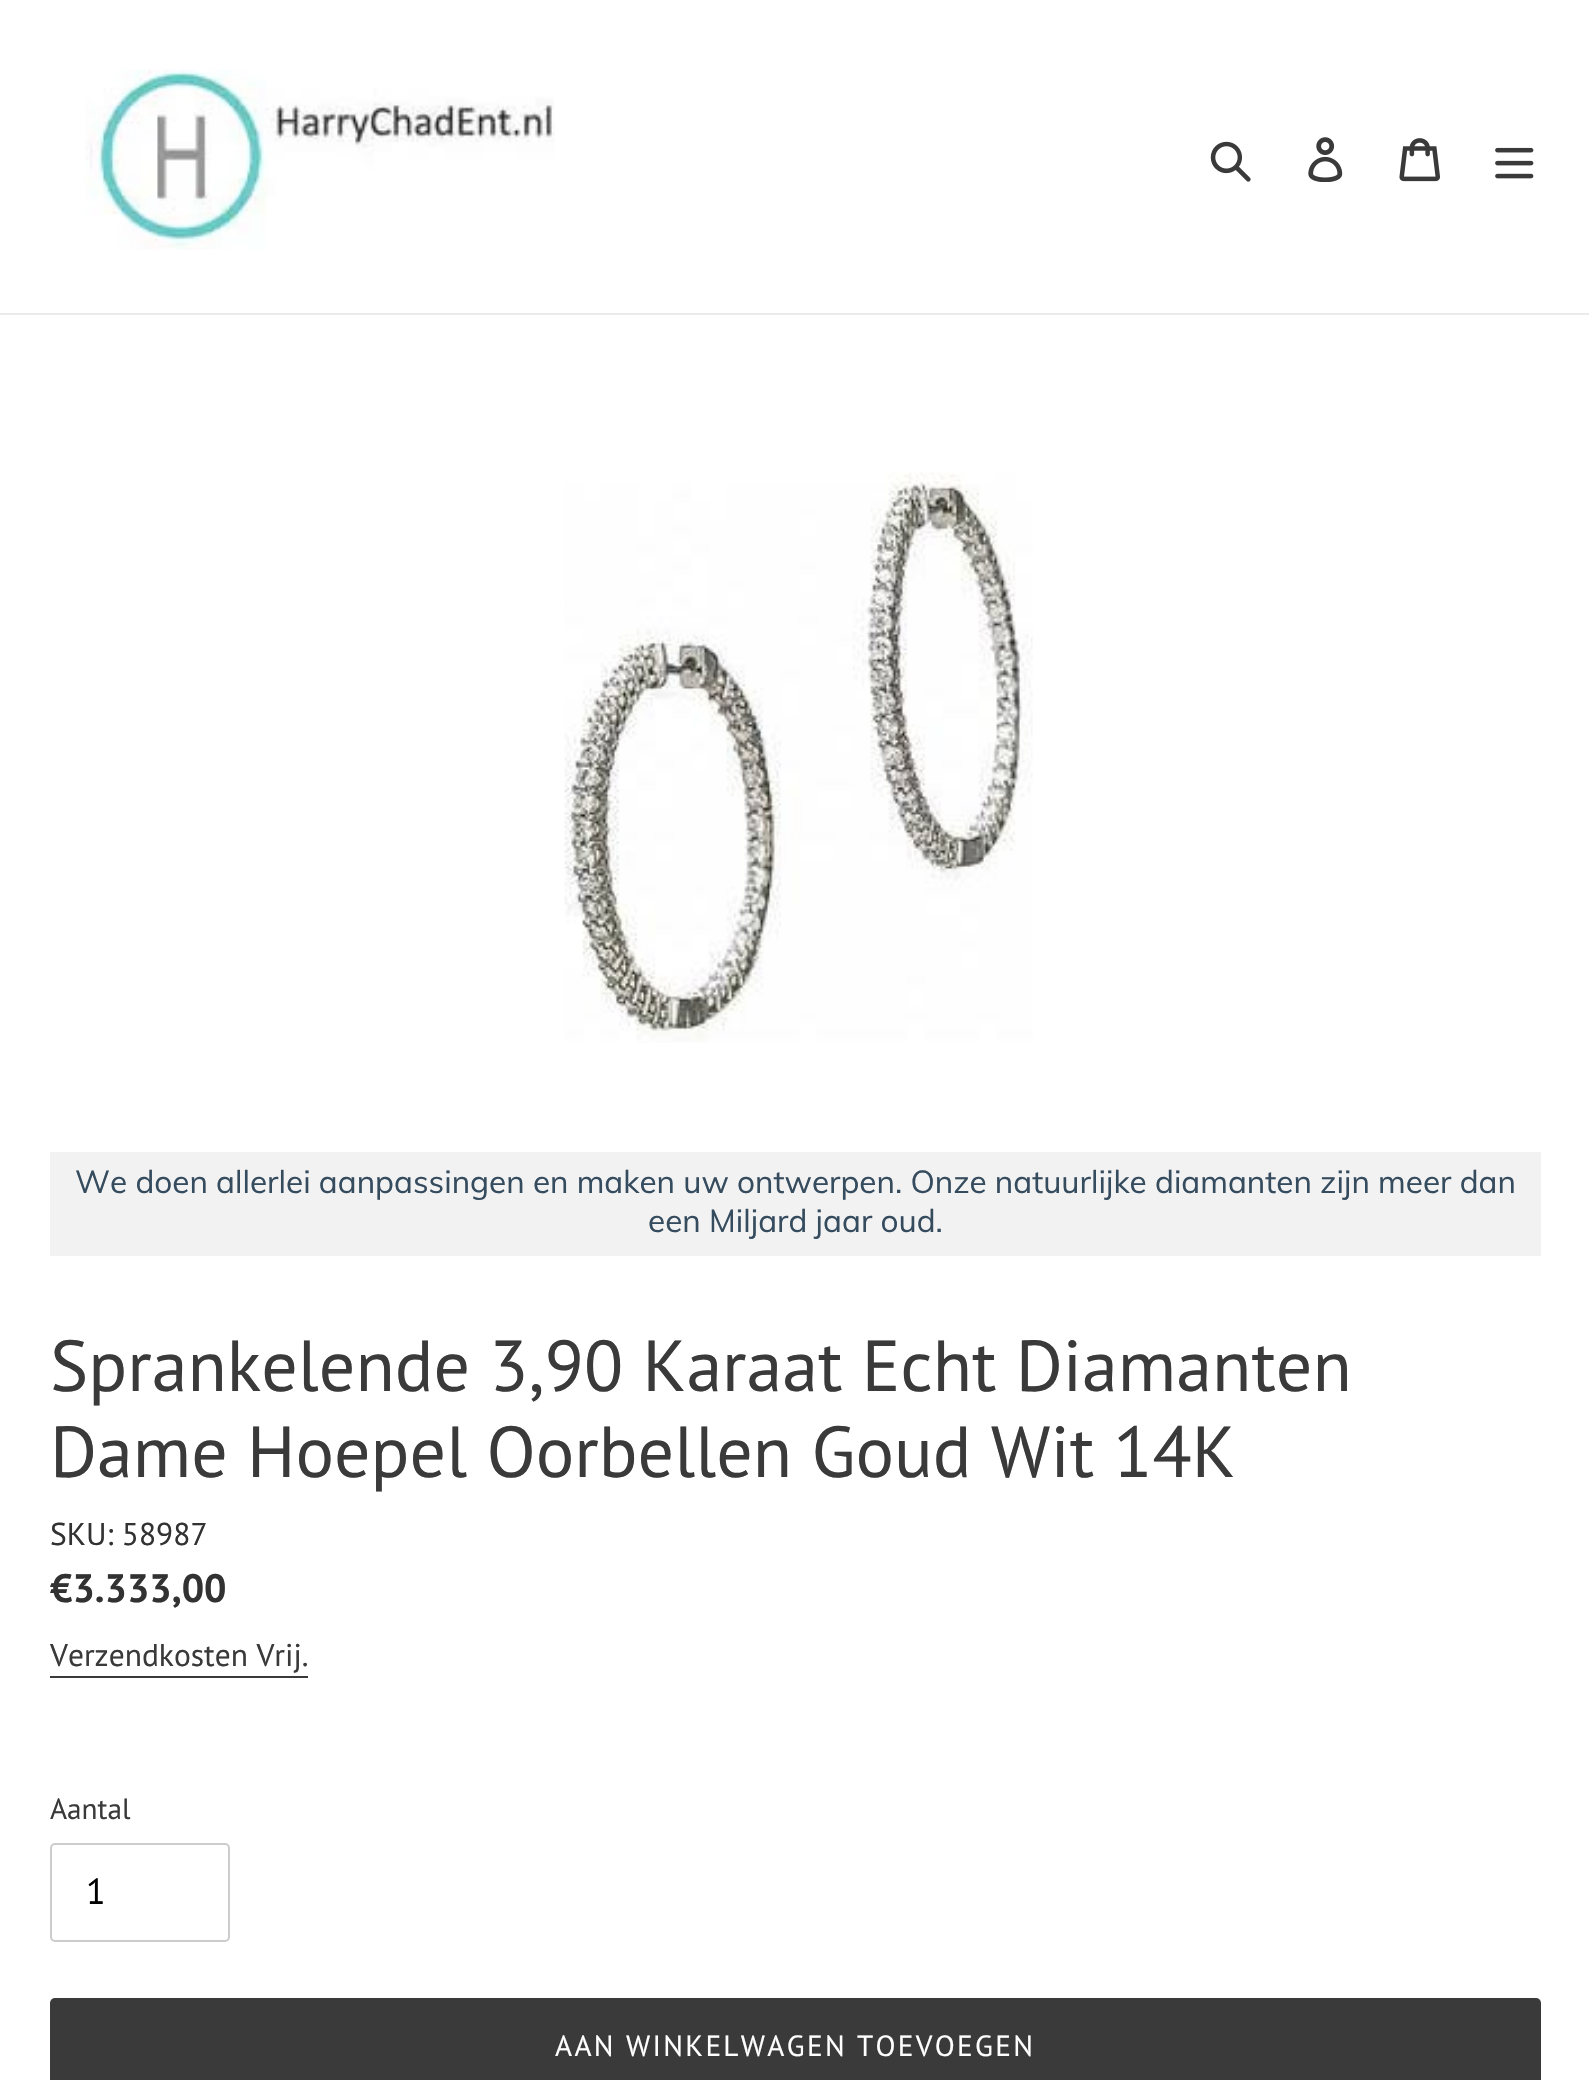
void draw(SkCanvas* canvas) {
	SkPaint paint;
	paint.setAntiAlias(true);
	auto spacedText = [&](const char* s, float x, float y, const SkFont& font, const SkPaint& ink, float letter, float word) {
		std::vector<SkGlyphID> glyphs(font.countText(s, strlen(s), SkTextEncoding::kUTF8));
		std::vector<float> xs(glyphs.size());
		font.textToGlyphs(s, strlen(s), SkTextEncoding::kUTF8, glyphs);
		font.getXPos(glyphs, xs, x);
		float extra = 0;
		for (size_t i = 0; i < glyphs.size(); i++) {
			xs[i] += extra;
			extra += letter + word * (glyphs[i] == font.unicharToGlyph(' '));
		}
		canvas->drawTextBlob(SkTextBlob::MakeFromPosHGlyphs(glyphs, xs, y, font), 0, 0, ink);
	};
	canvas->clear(0xffffffff);
	paint.setColor(0xffebebeb);
	canvas->drawRect(SkRect::MakeXYWH(0, 313, 1589, 2), paint);
	canvas->drawImageRect(SkImages::DeferredFromEncodedData(SkData::MakeFromFileName("img1.png")), SkRect::MakeXYWH(85, 69, 470, 181), SkSamplingOptions());
	canvas->drawImageRect(SkImages::DeferredFromEncodedData(SkData::MakeFromFileName("img2.png")), SkRect::MakeXYWH(1210, 141, 41, 41), SkSamplingOptions());
	canvas->drawImageRect(SkImages::DeferredFromEncodedData(SkData::MakeFromFileName("img3.png")), SkRect::MakeXYWH(1308, 137, 35, 45), SkSamplingOptions());
	canvas->drawImageRect(SkImages::DeferredFromEncodedData(SkData::MakeFromFileName("img4.png")), SkRect::MakeXYWH(1399, 138, 41, 44), SkSamplingOptions());
	canvas->drawImageRect(SkImages::DeferredFromEncodedData(SkData::MakeFromFileName("img5.png")), SkRect::MakeXYWH(1495, 147, 39, 32), SkSamplingOptions());
	canvas->drawImageRect(SkImages::DeferredFromEncodedData(SkData::MakeFromFileName("img6.png")), SkRect::MakeXYWH(564, 472, 469, 571), SkSamplingOptions());
	paint.setColor(0xfff2f2f2);
	canvas->drawRect(SkRect::MakeXYWH(50, 1152, 1491, 104), paint);
	SkFont f1(fontMgr->matchFamilyStyle("Muli", SkFontStyle::Normal()), 31.5);
	f1.setSubpixel(true);
	paint.setColor(0xff354b5e);
	canvas->drawString("We doen allerlei aanpassingen en maken uw ontwerpen. Onze natuurlijke diamanten zijn meer dan", 75, 1193, f1, paint);
	canvas->drawString("een Miljard jaar oud.", 648, 1232, f1, paint);
	SkFont f2(fontMgr->matchFamilyStyle("PT Sans", SkFontStyle::Normal()), 72);
	f2.setSubpixel(true);
	paint.setColor(0xff3a3a3a);
	canvas->drawString("Sprankelende 3,90 Karaat Echt Diamanten", 50, 1391, f2, paint);
	canvas->drawString("Dame Hoepel Oorbellen Goud Wit 14K", 50, 1477, f2, paint);
	SkFont f3(fontMgr->matchFamilyStyle("PT Sans", SkFontStyle::Normal()), 31.5);
	f3.setSubpixel(true);
	paint.setColor(0xff333232);
	canvas->drawString("SKU: 58987", 50, 1545, f3, paint);
	SkFont f4(fontMgr->matchFamilyStyle("PT Sans", SkFontStyle::Bold()), 39.5);
	f4.setSubpixel(true);
	canvas->drawString("€3.333,00", 50, 1602, f4, paint);
	paint.setColor(0xff3a3a3a);
	canvas->drawString("Verzendkosten Vrij.", 50, 1666, f3, paint);
	canvas->drawRect(SkRect::MakeXYWH(50, 1676, 258, 2), paint);
	SkFont f5(fontMgr->matchFamilyStyle("PT Sans", SkFontStyle::Normal()), 29.25);
	f5.setSubpixel(true);
	canvas->drawString("Aantal", 50, 1819, f5, paint);
	paint.setStroke(true);
	paint.setStrokeWidth(2);
	paint.setColor(0xffcccccc);
	canvas->drawRoundRect(SkRect::MakeXYWH(51, 1844, 178, 97), 4, 4, paint);
	SkFont f6(fontMgr->matchFamilyStyle("PT Sans", SkFontStyle::Normal()), 36);
	f6.setSubpixel(true);
	paint.setStroke(false);
	paint.setColor(0xff000000);
	canvas->drawString("1", 86, 1904, f6, paint);
	paint.setColor(0xff3a3a3a);
	canvas->drawRoundRect(SkRect::MakeXYWH(50, 1998, 1491, 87), 5, 5, paint);
	paint.setColor(0xffffffff);
	spacedText("AAN WINKELWAGEN TOEVOEGEN", 555, 2056, f5, paint, 2.3, 0);
}
